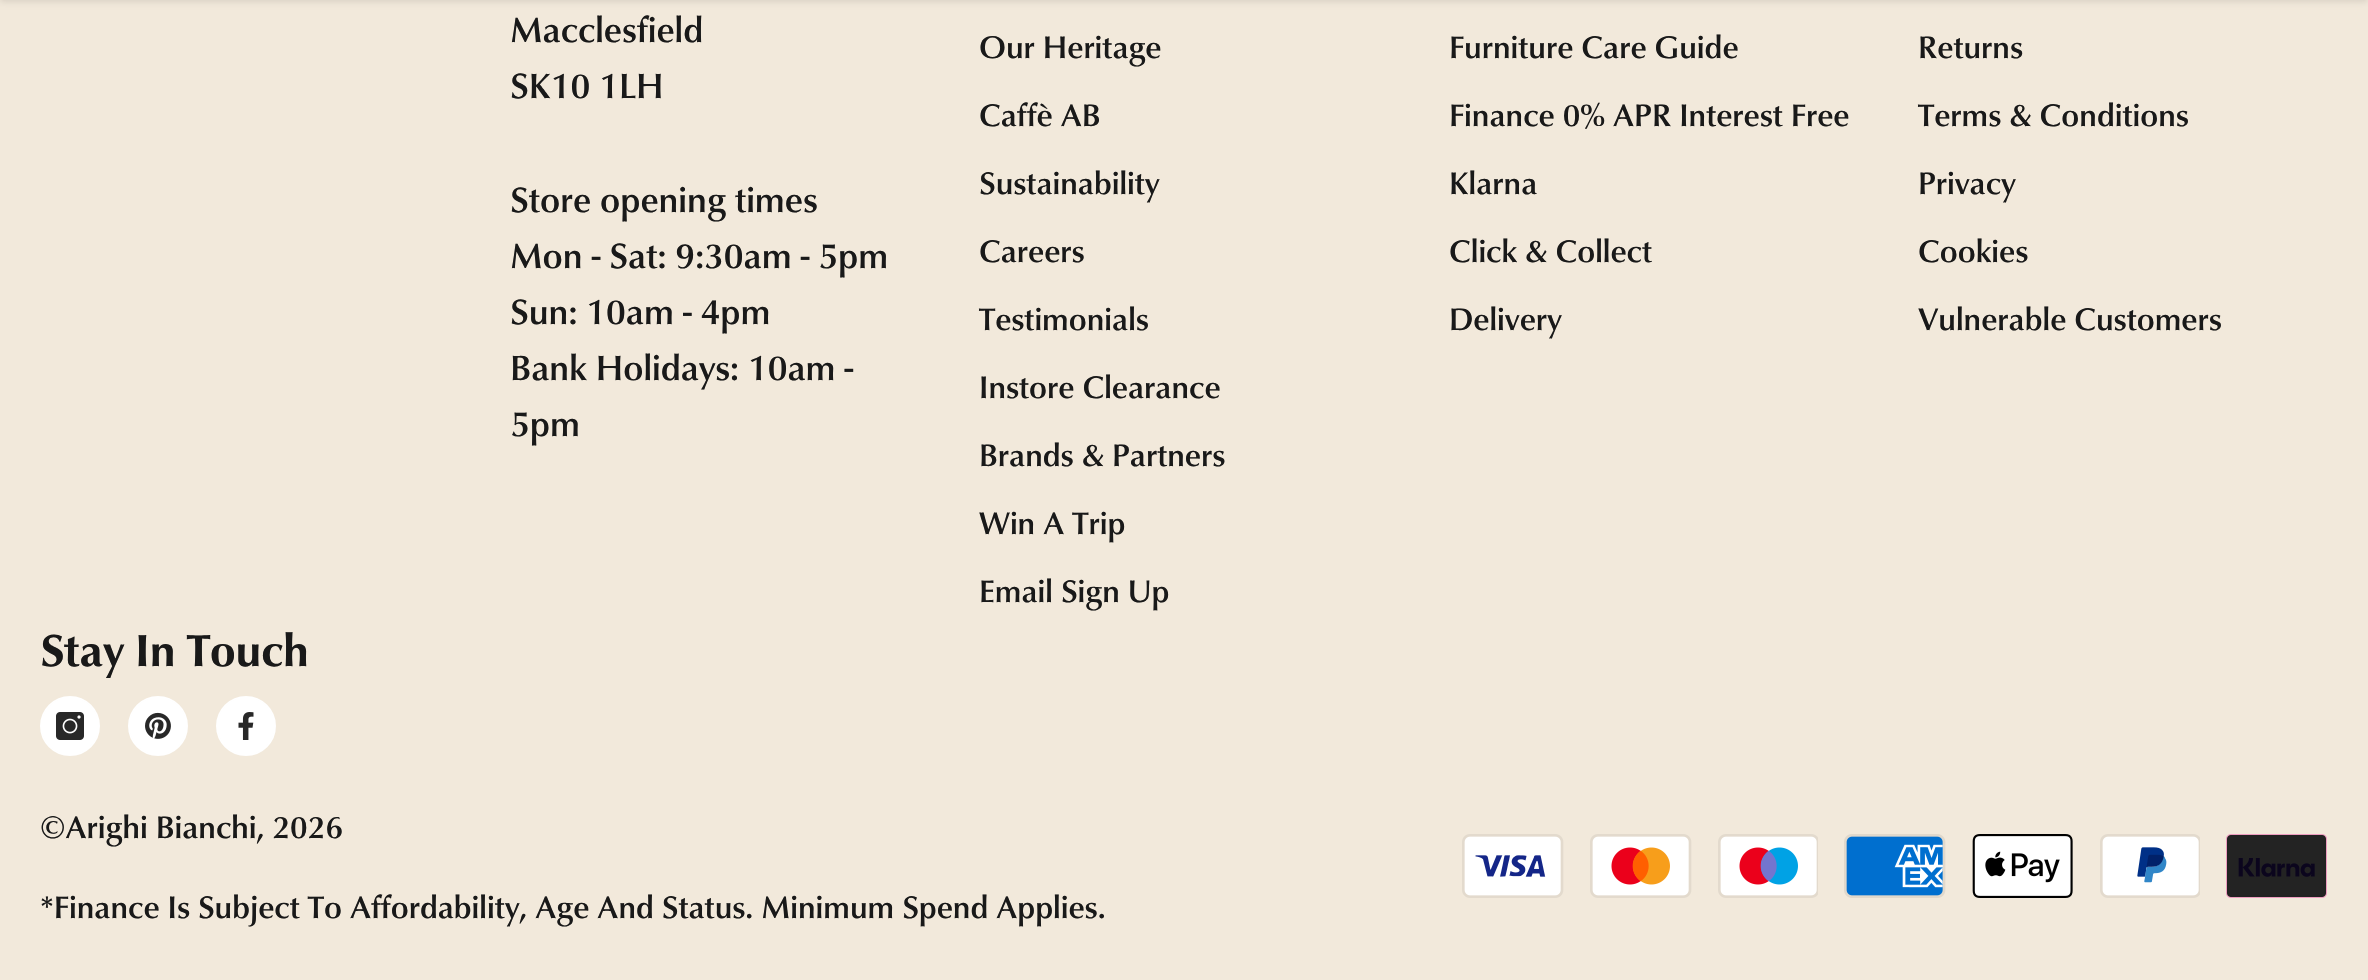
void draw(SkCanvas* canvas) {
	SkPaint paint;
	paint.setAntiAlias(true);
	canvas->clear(0xfff2e9db);
	paint.setColor(0x1a000000);
	paint.setMaskFilter(SkMaskFilter::MakeBlur(kNormal_SkBlurStyle, 3));
	canvas->drawRect(SkRect::MakeXYWH(0, -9, 2368, 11), paint);
	paint.setMaskFilter(nullptr);
	SkFont f1(fontMgr->matchFamilyStyle("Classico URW", SkFontStyle(500, SkFontStyle::kNormal_Width, SkFontStyle::kUpright_Slant)), 36);
	f1.setSubpixel(true);
	paint.setColor(0xff191919);
	canvas->drawString("Macclesfield", 510, 42, f1, paint);
	canvas->drawString("SK10 1LH", 510, 98, f1, paint);
	canvas->drawString("Store opening times", 510, 212, f1, paint);
	canvas->drawString("Mon - Sat: 9:30am - 5pm", 510, 268, f1, paint);
	canvas->drawString("Sun: 10am - 4pm", 510, 324, f1, paint);
	canvas->drawString("Bank Holidays: 10am -", 510, 380, f1, paint);
	canvas->drawString("5pm", 510, 436, f1, paint);
	SkFont f2(fontMgr->matchFamilyStyle("Classico URW", SkFontStyle(500, SkFontStyle::kNormal_Width, SkFontStyle::kUpright_Slant)), 32);
	f2.setSubpixel(true);
	canvas->drawString("Our Heritage", 979, 58, f2, paint);
	canvas->drawString("Caffè AB", 979, 126, f2, paint);
	canvas->drawString("Sustainability", 979, 194, f2, paint);
	canvas->drawString("Careers", 979, 262, f2, paint);
	canvas->drawString("Testimonials", 979, 330, f2, paint);
	canvas->drawString("Instore Clearance", 979, 398, f2, paint);
	canvas->drawString("Brands & Partners", 979, 466, f2, paint);
	canvas->drawString("Win A Trip", 979, 534, f2, paint);
	canvas->drawString("Email Sign Up", 979, 602, f2, paint);
	canvas->drawString("Furniture Care Guide", 1449, 58, f2, paint);
	canvas->drawString("Finance 0% APR Interest Free", 1449, 126, f2, paint);
	canvas->drawString("Klarna", 1449, 194, f2, paint);
	canvas->drawString("Click & Collect", 1449, 262, f2, paint);
	canvas->drawString("Delivery", 1449, 330, f2, paint);
	canvas->drawString("Returns", 1918, 58, f2, paint);
	canvas->drawString("Terms & Conditions", 1918, 126, f2, paint);
	canvas->drawString("Privacy", 1918, 194, f2, paint);
	canvas->drawString("Cookies", 1918, 262, f2, paint);
	canvas->drawString("Vulnerable Customers", 1918, 330, f2, paint);
	SkFont f3(fontMgr->matchFamilyStyle("Classico URW", SkFontStyle::Bold()), 46);
	f3.setSubpixel(true);
	canvas->drawString("Stay In Touch", 40, 666, f3, paint);
	paint.setColor(0xffffffff);
	canvas->drawCircle(70, 726, 29, paint);
	paint.setStroke(true);
	paint.setStrokeWidth(2);
	canvas->drawCircle(70, 726, 29, paint);
	canvas->drawImageRect(SkImages::DeferredFromEncodedData(SkData::MakeFromFileName("img1.png")), SkRect::MakeXYWH(56, 712, 28, 28), SkSamplingOptions());
	paint.setStroke(false);
	canvas->drawCircle(158, 726, 29, paint);
	paint.setStroke(true);
	canvas->drawCircle(158, 726, 29, paint);
	canvas->drawImageRect(SkImages::DeferredFromEncodedData(SkData::MakeFromFileName("img2.png")), SkRect::MakeXYWH(145, 712, 26, 27), SkSamplingOptions());
	paint.setStroke(false);
	canvas->drawCircle(246, 726, 29, paint);
	paint.setStroke(true);
	canvas->drawCircle(246, 726, 29, paint);
	canvas->drawImageRect(SkImages::DeferredFromEncodedData(SkData::MakeFromFileName("img3.png")), SkRect::MakeXYWH(238, 712, 16, 28), SkSamplingOptions());
	paint.setStroke(false);
	paint.setColor(0xff191919);
	canvas->drawString("©Arighi Bianchi, 2026", 40, 838, f2, paint);
	canvas->drawString("*Finance Is Subject To Affordability, Age And Status. Minimum Spend Applies.", 40, 918, f2, paint);
	canvas->drawImageRect(SkImages::DeferredFromEncodedData(SkData::MakeFromFileName("img4.png")), SkRect::MakeXYWH(1462, 834, 102, 64), SkSamplingOptions());
	canvas->drawImageRect(SkImages::DeferredFromEncodedData(SkData::MakeFromFileName("img5.png")), SkRect::MakeXYWH(1590, 834, 102, 64), SkSamplingOptions());
	canvas->drawImageRect(SkImages::DeferredFromEncodedData(SkData::MakeFromFileName("img6.png")), SkRect::MakeXYWH(1718, 834, 100, 64), SkSamplingOptions());
	canvas->drawImageRect(SkImages::DeferredFromEncodedData(SkData::MakeFromFileName("img7.png")), SkRect::MakeXYWH(1844, 834, 102, 64), SkSamplingOptions());
	canvas->drawImageRect(SkImages::DeferredFromEncodedData(SkData::MakeFromFileName("img8.png")), SkRect::MakeXYWH(1972, 834, 101, 64), SkSamplingOptions());
	canvas->drawImageRect(SkImages::DeferredFromEncodedData(SkData::MakeFromFileName("img9.png")), SkRect::MakeXYWH(2100, 834, 100, 64), SkSamplingOptions());
	canvas->drawImageRect(SkImages::DeferredFromEncodedData(SkData::MakeFromFileName("img10.png")), SkRect::MakeXYWH(2226, 834, 101, 64), SkSamplingOptions());
}
